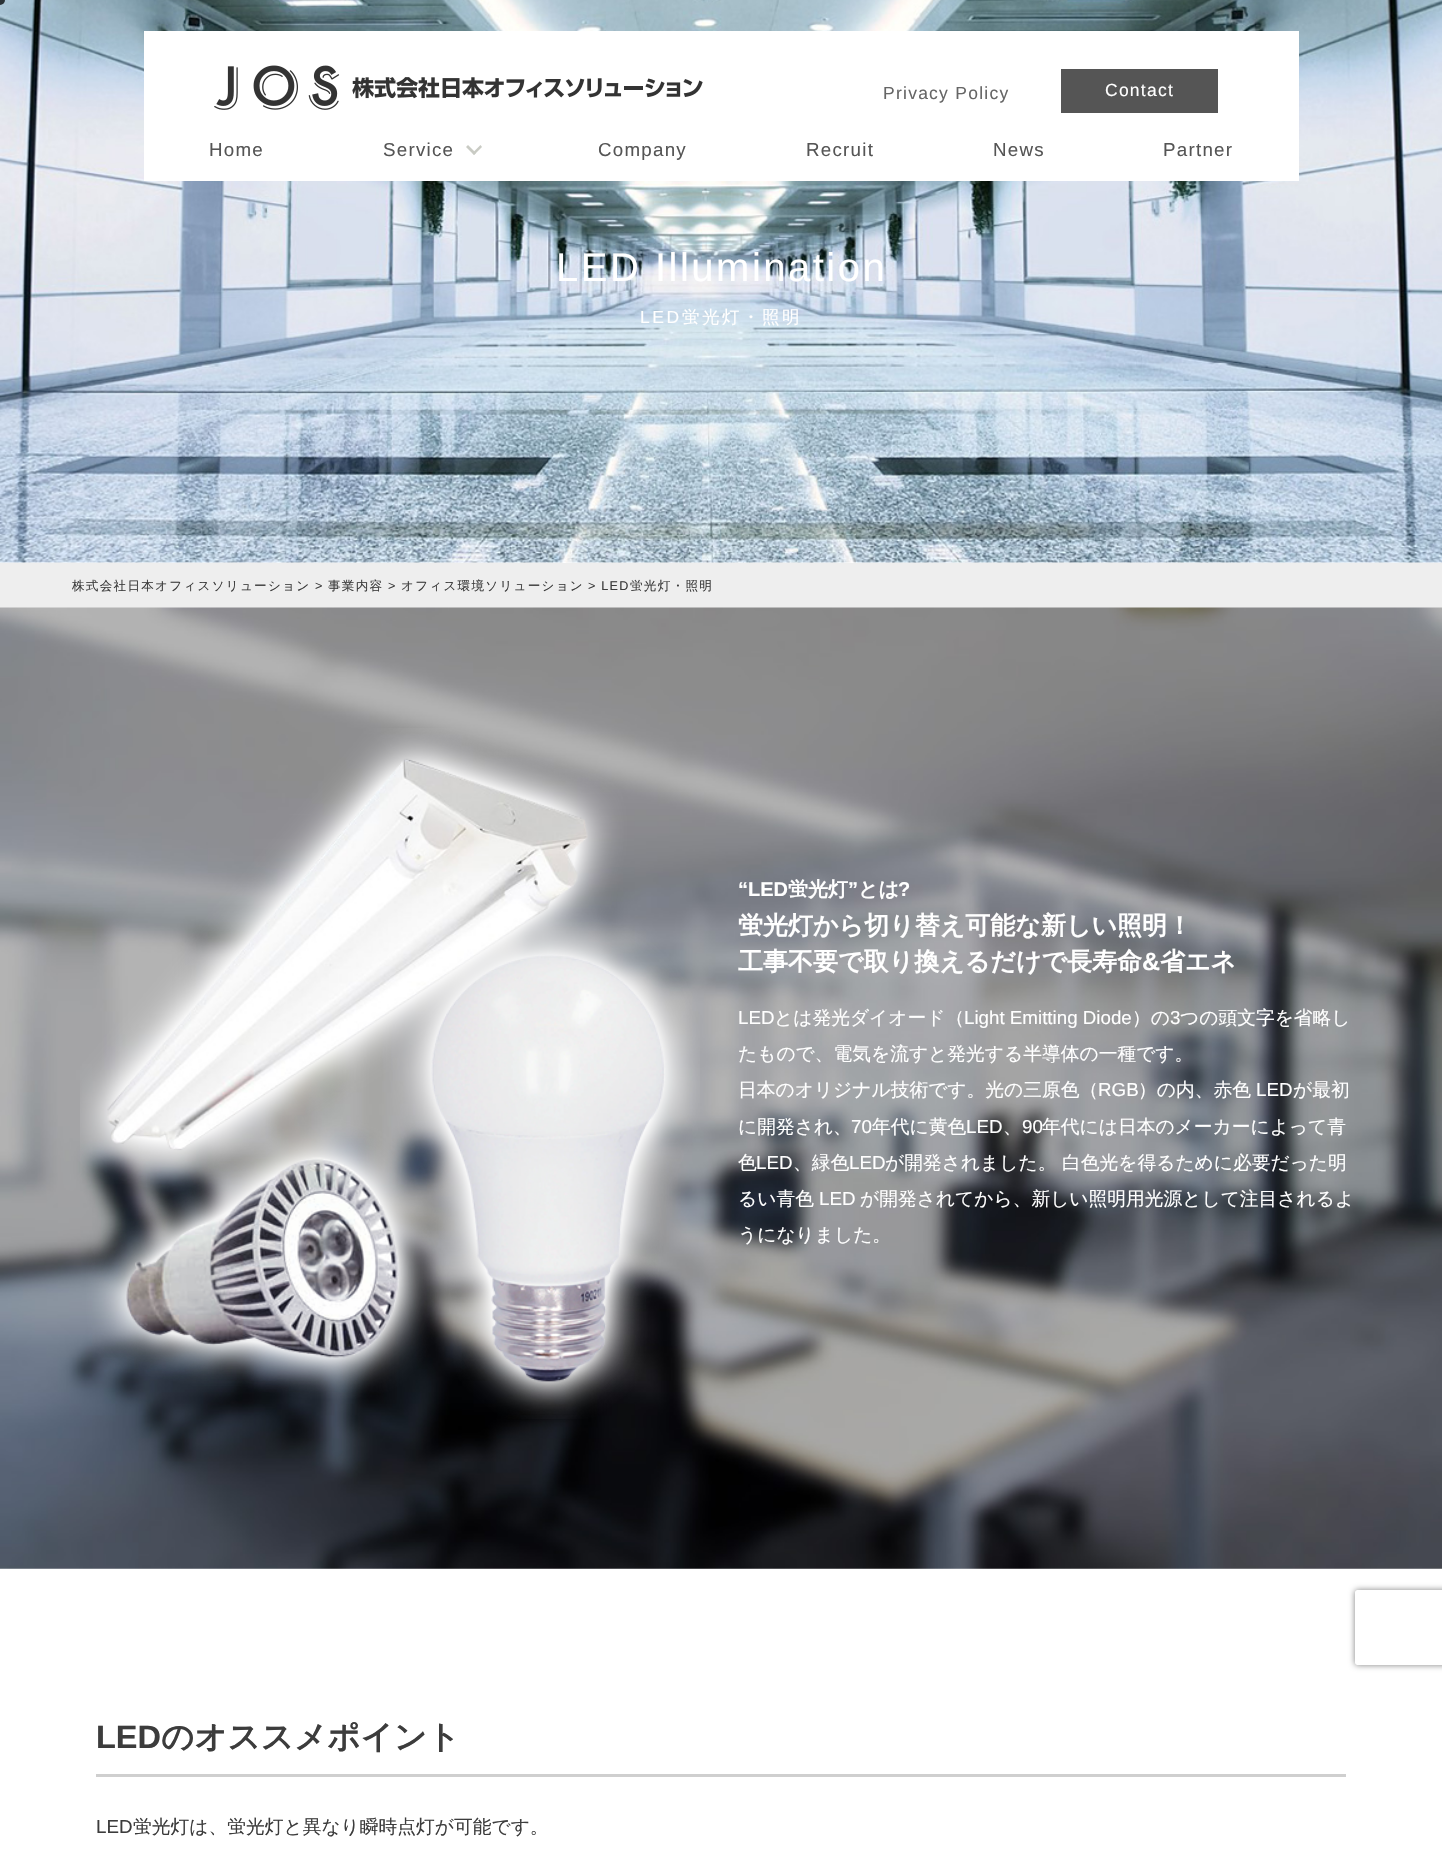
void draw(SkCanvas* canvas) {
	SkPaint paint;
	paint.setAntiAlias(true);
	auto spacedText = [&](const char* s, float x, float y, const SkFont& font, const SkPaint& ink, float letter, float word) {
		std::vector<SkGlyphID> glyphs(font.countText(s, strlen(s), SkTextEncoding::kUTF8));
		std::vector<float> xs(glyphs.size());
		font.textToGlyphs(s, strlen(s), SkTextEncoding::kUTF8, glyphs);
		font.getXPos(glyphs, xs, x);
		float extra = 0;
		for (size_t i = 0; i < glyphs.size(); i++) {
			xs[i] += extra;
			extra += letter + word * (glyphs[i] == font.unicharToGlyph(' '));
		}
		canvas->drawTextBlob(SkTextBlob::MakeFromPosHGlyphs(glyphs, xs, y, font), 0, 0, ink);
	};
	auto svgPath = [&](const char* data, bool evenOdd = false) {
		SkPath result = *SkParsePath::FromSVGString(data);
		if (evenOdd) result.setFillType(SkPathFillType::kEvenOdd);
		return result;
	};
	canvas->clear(0xffffffff);
	canvas->drawImageRect(SkImages::DeferredFromEncodedData(SkData::MakeFromFileName("img2.png")), SkRect::MakeXYWH(0, 0, 1442, 563), SkSamplingOptions());
	paint.setColor(0xbf000000);
	canvas->drawCircle(0, 0, 5, paint);
	paint.setColor(0xffffffff);
	canvas->drawRect(SkRect::MakeXYWH(144, 31, 1155, 150), paint);
	canvas->drawImageRect(SkImages::DeferredFromEncodedData(SkData::MakeFromFileName("img1.png")), SkRect::MakeXYWH(214, 65, 489, 45), SkSamplingOptions());
	SkFont f1(fontMgr->matchFamilyStyle("Liberation Sans", SkFontStyle::Normal()), 17.5);
	f1.setSubpixel(true);
	paint.setColor(0xff666666);
	spacedText("Privacy Policy", 883, 99, f1, paint, 1.25, 0);
	paint.setColor(0xff555555);
	canvas->drawRect(SkRect::MakeXYWH(1061, 69, 157, 44), paint);
	paint.setColor(0xffffffff);
	spacedText("Contact", 1105, 96, f1, paint, 1.25, 0);
	SkFont f2(fontMgr->matchFamilyStyle("Liberation Sans", SkFontStyle::Normal()), 18.75);
	f2.setSubpixel(true);
	paint.setColor(0xff555555);
	spacedText("Home", 209, 156, f2, paint, 1.25, 0);
	spacedText("Service", 383, 156, f2, paint, 1.25, 0);
	paint.setColor(0xffc9cbc4);
	canvas->drawPath(svgPath("M468 145L476 153L474 155L466 147Z"), paint);
	canvas->drawPath(svgPath("M472.5 153L480.5 145L482 147L474 155Z"), paint);
	paint.setColor(0xff555555);
	spacedText("Company", 598, 156, f2, paint, 1.25, 0);
	spacedText("Recruit", 806, 156, f2, paint, 1.25, 0);
	spacedText("News", 993, 156, f2, paint, 1.25, 0);
	spacedText("Partner", 1163, 156, f2, paint, 1.25, 0);
	SkFont f3(fontMgr->matchFamilyStyle("Liberation Sans", SkFontStyle::Normal()), 40);
	f3.setSubpixel(true);
	paint.setColor(0xffffffff);
	spacedText("LED Illumination", 556, 281, f3, paint, 2.5, 0);
	spacedText("LED", 640, 323, f1, paint, 2.5, 0);
	SkFont f4(fontMgr->matchFamilyStyle("WenQuanYi Zen Hei", SkFontStyle(500, SkFontStyle::kNormal_Width, SkFontStyle::kUpright_Slant)), 17.5);
	f4.setSubpixel(true);
	spacedText("蛍光灯・照明", 682, 323, f4, paint, 2.5, 0);
	paint.setColor(0xffeeeeee);
	canvas->drawRect(SkRect::MakeXYWH(0, 563, 1442, 45), paint);
	SkFont f5(fontMgr->matchFamilyStyle("WenQuanYi Zen Hei", SkFontStyle(500, SkFontStyle::kNormal_Width, SkFontStyle::kUpright_Slant)), 12.6);
	f5.setSubpixel(true);
	paint.setColor(0xff3c3c3c);
	spacedText("株式会社日本オフィスソリューション", 72, 590, f5, paint, 1.25, 0);
	SkFont f6(fontMgr->matchFamilyStyle("Liberation Sans", SkFontStyle::Normal()), 12.6);
	f6.setSubpixel(true);
	spacedText(">", 315, 590, f6, paint, 1.25, 0);
	spacedText("事業内容", 328, 590, f5, paint, 1.25, 0);
	spacedText(">", 388, 590, f6, paint, 1.25, 0);
	spacedText("オフィス環境ソリューション", 401, 590, f5, paint, 1.25, 0);
	spacedText("> LED", 588, 590, f6, paint, 1.25, 0);
	spacedText("蛍光灯・照明", 630, 590, f5, paint, 1.25, 0);
	canvas->drawImageRect(SkImages::DeferredFromEncodedData(SkData::MakeFromFileName("img3.png")), SkRect::MakeXYWH(0, 607, 1442, 962), SkSamplingOptions());
	canvas->drawImageRect(SkImages::DeferredFromEncodedData(SkData::MakeFromFileName("img4.png")), SkRect::MakeXYWH(80, 728, 620, 691), SkSamplingOptions());
	SkFont f7(fontMgr->matchFamilyStyle("Liberation Sans", SkFontStyle::Bold()), 20);
	f7.setSubpixel(true);
	paint.setColor(0xffffffff);
	canvas->drawString("“LED", 738, 896, f7, paint);
	SkFont f8(fontMgr->matchFamilyStyle("WenQuanYi Zen Hei", SkFontStyle::Bold()), 20);
	f8.setSubpixel(true);
	canvas->drawString("蛍光灯", 788, 896, f8, paint);
	canvas->drawString("”", 848, 896, f7, paint);
	canvas->drawString("とは", 858, 896, f8, paint);
	canvas->drawString("?", 898, 896, f7, paint);
	SkFont f9(fontMgr->matchFamilyStyle("WenQuanYi Zen Hei", SkFontStyle::Bold()), 25);
	f9.setSubpixel(true);
	canvas->drawString("蛍光灯から切り替え可能な新しい照明！", 738, 934, f9, paint);
	canvas->drawString("工事不要で取り換えるだけで長寿命", 738, 970, f9, paint);
	SkFont f10(fontMgr->matchFamilyStyle("Liberation Sans", SkFontStyle::Bold()), 25);
	f10.setSubpixel(true);
	canvas->drawString("&", 1142, 970, f10, paint);
	canvas->drawString("省エネ", 1160, 970, f9, paint);
	canvas->drawString("LED", 738, 1024, f2, paint);
	SkFont f11(fontMgr->matchFamilyStyle("WenQuanYi Zen Hei", SkFontStyle(500, SkFontStyle::kNormal_Width, SkFontStyle::kUpright_Slant)), 18.75);
	f11.setSubpixel(true);
	canvas->drawString("とは発光ダイオード（", 774, 1024, f11, paint);
	canvas->drawString("Light Emitting Diode", 964, 1024, f2, paint);
	canvas->drawString("）の", 1132, 1024, f11, paint);
	canvas->drawString("3", 1170, 1024, f2, paint);
	canvas->drawString("つの頭文字を省略し", 1180, 1024, f11, paint);
	canvas->drawString("たもので、電気を流すと発光する半導体の一種です。", 738, 1060, f11, paint);
	canvas->drawString("日本のオリジナル技術です。光の三原色（", 738, 1096, f11, paint);
	canvas->drawString("RGB", 1098, 1096, f2, paint);
	canvas->drawString("）の内、赤色", 1138, 1096, f11, paint);
	canvas->drawString("LED", 1256, 1096, f2, paint);
	canvas->drawString("が最初", 1293, 1096, f11, paint);
	canvas->drawString("に開発され、", 738, 1133, f11, paint);
	canvas->drawString("70", 851, 1133, f2, paint);
	canvas->drawString("年代に黄色", 872, 1133, f11, paint);
	canvas->drawString("LED", 966, 1133, f2, paint);
	canvas->drawString("90", 1022, 1133, f2, paint);
	canvas->drawString("年代には日本のメーカーによって青", 1042, 1133, f11, paint);
	canvas->drawString("、", 1003, 1133, f11, paint);
	canvas->drawString("色", 738, 1169, f11, paint);
	canvas->drawString("LED", 756, 1169, f2, paint);
	canvas->drawString("、緑色", 793, 1169, f11, paint);
	canvas->drawString("LED", 849, 1169, f2, paint);
	canvas->drawString("が開発されました。 白色光を得るために必要だった明", 885, 1169, f11, paint);
	canvas->drawString("るい青色", 738, 1205, f11, paint);
	canvas->drawString("LED", 819, 1205, f2, paint);
	canvas->drawString("が開発されてから、新しい照明用光源として注目されるよ", 860, 1205, f11, paint);
	canvas->drawString("うになりました。", 738, 1241, f11, paint);
	paint.setColor(0xffcfcfcf);
	canvas->drawRect(SkRect::MakeXYWH(96, 1774, 1250, 3), paint);
	SkFont f12(fontMgr->matchFamilyStyle("Liberation Sans", SkFontStyle::Bold()), 32.5);
	f12.setSubpixel(true);
	paint.setColor(0xff3c3c3c);
	canvas->drawString("LED", 96, 1748, f12, paint);
	SkFont f13(fontMgr->matchFamilyStyle("WenQuanYi Zen Hei", SkFontStyle::Bold()), 32.5);
	f13.setSubpixel(true);
	canvas->drawString("のオススメポイント", 161, 1748, f13, paint);
	canvas->drawString("LED", 96, 1833, f2, paint);
	canvas->drawString("蛍光灯は、蛍光灯と異なり瞬時点灯が可能です。", 133, 1833, f11, paint);
	canvas->save();
	canvas->clipPath(svgPath("M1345 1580H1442V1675H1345ZM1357.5 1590H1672.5C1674 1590 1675 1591 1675 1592.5V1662.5C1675 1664 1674 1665 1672.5 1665H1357.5C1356 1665 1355 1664 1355 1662.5V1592.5C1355 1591 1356 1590 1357.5 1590Z", true), true);
	paint.setColor(0xff808080);
	paint.setMaskFilter(SkMaskFilter::MakeBlur(kNormal_SkBlurStyle, 3));
	canvas->drawRoundRect(SkRect::MakeXYWH(1355, 1590, 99, 75), 2.5, 2.5, paint);
	paint.setMaskFilter(nullptr);
	canvas->restore();
}
